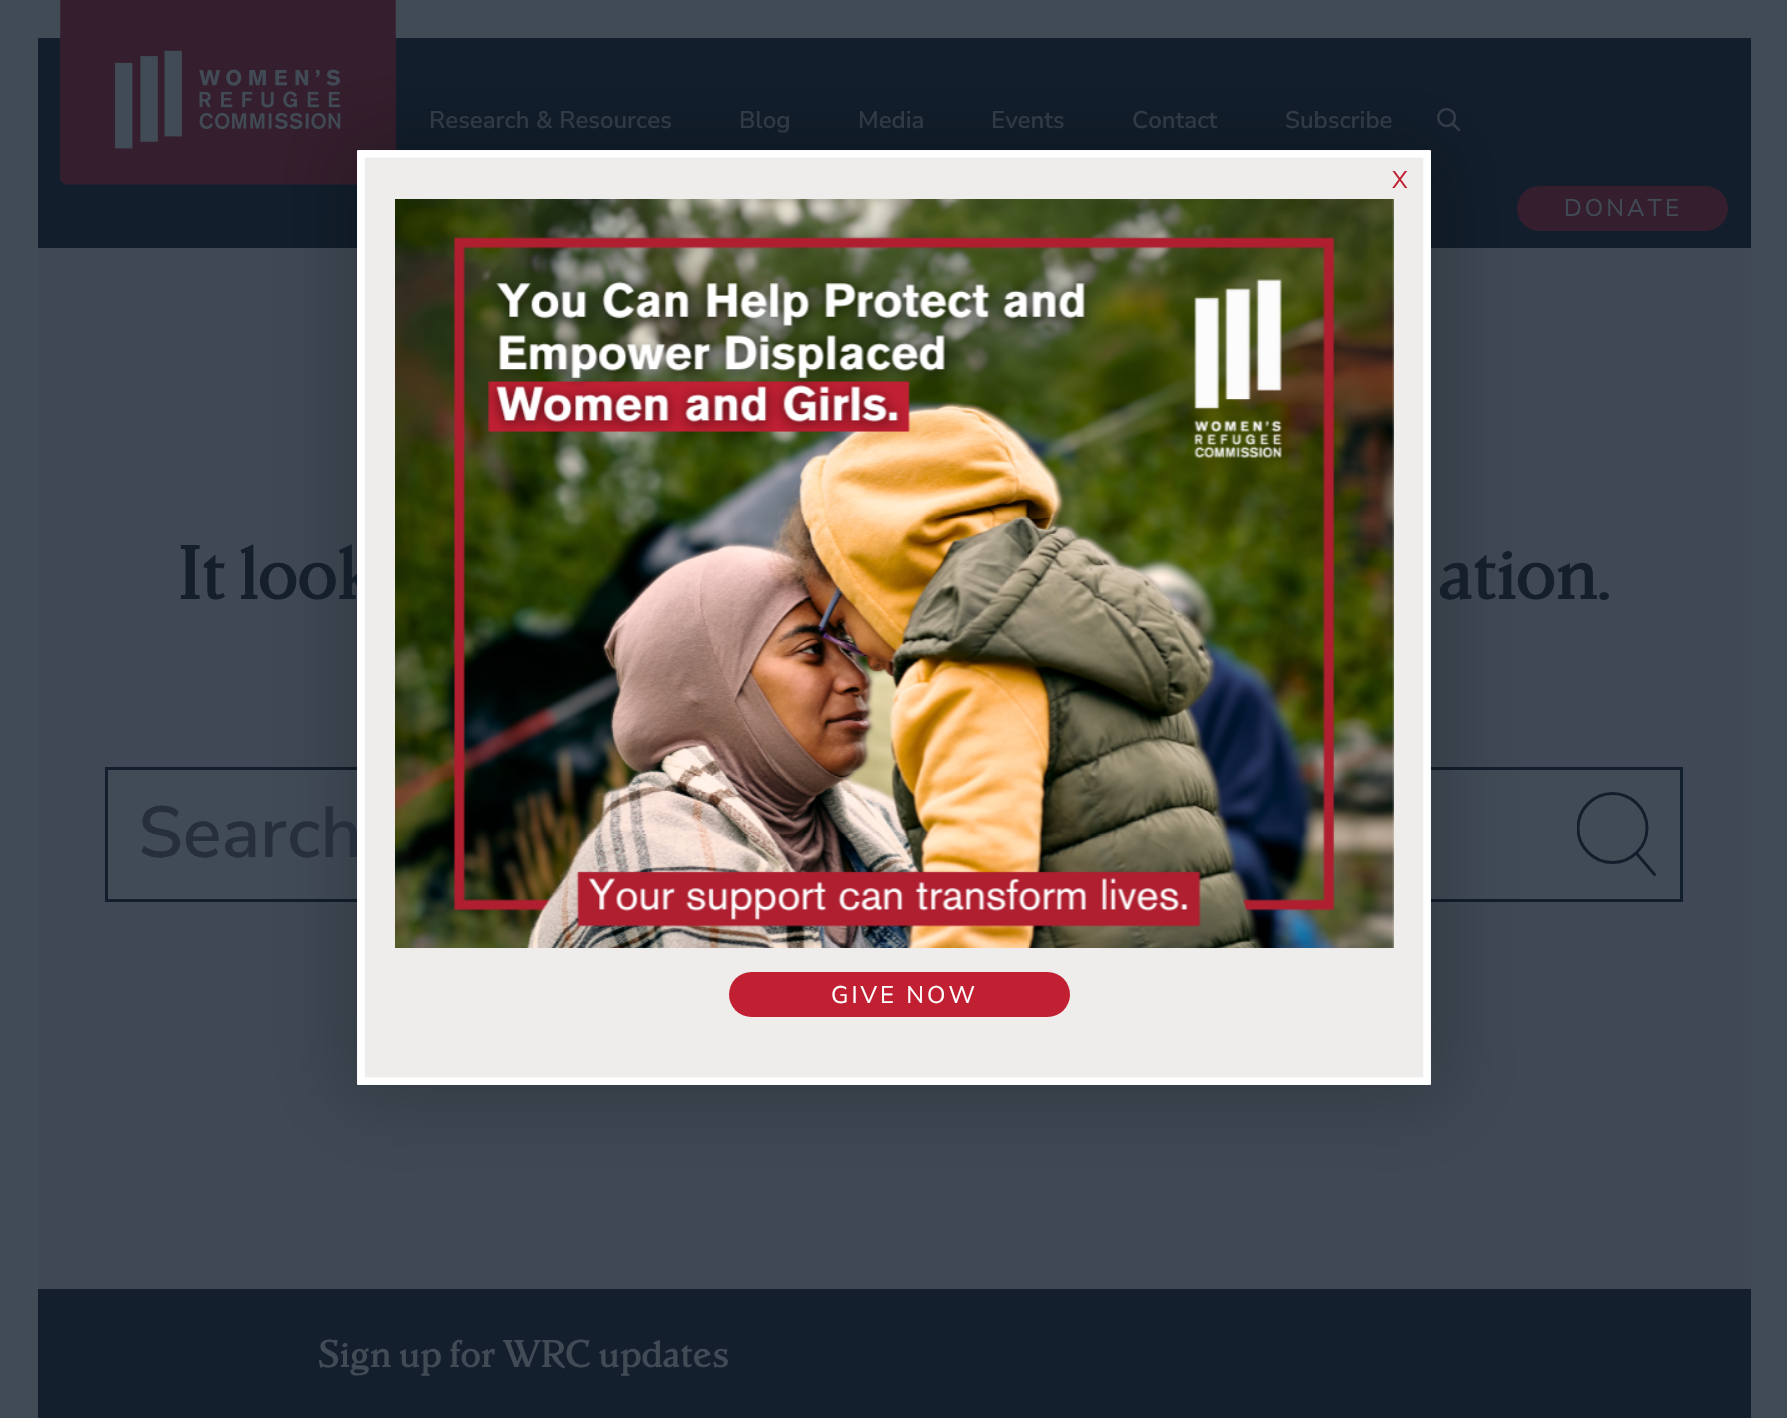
void draw(SkCanvas* canvas) {
	SkPaint paint;
	paint.setAntiAlias(true);
	auto spacedText = [&](const char* s, float x, float y, const SkFont& font, const SkPaint& ink, float letter, float word) {
		std::vector<SkGlyphID> glyphs(font.countText(s, strlen(s), SkTextEncoding::kUTF8));
		std::vector<float> xs(glyphs.size());
		font.textToGlyphs(s, strlen(s), SkTextEncoding::kUTF8, glyphs);
		font.getXPos(glyphs, xs, x);
		float extra = 0;
		for (size_t i = 0; i < glyphs.size(); i++) {
			xs[i] += extra;
			extra += letter + word * (glyphs[i] == font.unicharToGlyph(' '));
		}
		canvas->drawTextBlob(SkTextBlob::MakeFromPosHGlyphs(glyphs, xs, y, font), 0, 0, ink);
	};
	auto svgPath = [&](const char* data, bool evenOdd = false) {
		SkPath result = *SkParsePath::FromSVGString(data);
		if (evenOdd) result.setFillType(SkPathFillType::kEvenOdd);
		return result;
	};
	canvas->clear(0xff414b56);
	paint.setColor(0xff3f4854);
	canvas->drawRect(SkRect::MakeXYWH(38, 248, 1713, 1041), paint);
	paint.setColor(0xff121e2c);
	canvas->drawRect(SkRect::MakeXYWH(38, 38, 1713, 210), paint);
	canvas->drawImageRect(SkImages::DeferredFromEncodedData(SkData::MakeFromFileName("img1.png")), SkRect::MakeXYWH(60, 0, 336, 185), SkSamplingOptions());
	SkFont f1(fontMgr->matchFamilyStyle("Nunito Sans", SkFontStyle(600, SkFontStyle::kNormal_Width, SkFontStyle::kUpright_Slant)), 24);
	f1.setSubpixel(true);
	paint.setColor(0xff333e4a);
	canvas->drawString("Research & Resources", 429, 128, f1, paint);
	canvas->drawString("Blog", 739, 128, f1, paint);
	canvas->drawString("Media", 858, 128, f1, paint);
	canvas->drawString("Events", 991, 128, f1, paint);
	canvas->drawString("Contact", 1132, 128, f1, paint);
	canvas->drawString("Subscribe", 1285, 128, f1, paint);
	canvas->drawImageRect(SkImages::DeferredFromEncodedData(SkData::MakeFromFileName("img2.png")), SkRect::MakeXYWH(1437, 108, 24, 24), SkSamplingOptions());
	paint.setColor(0xff351e2d);
	canvas->drawRoundRect(SkRect::MakeXYWH(1517, 186, 211, 45), 22.5, 22.5, paint);
	SkFont f2(fontMgr->matchFamilyStyle("Nunito Sans", SkFontStyle::Normal()), 24);
	f2.setSubpixel(true);
	paint.setColor(0xff414b56);
	spacedText("DONATE", 1564, 216, f2, paint, 3, 0);
	canvas->drawRect(SkRect::MakeXYWH(106.5, 768.5, 1575, 132), paint);
	paint.setStroke(true);
	paint.setStrokeWidth(3);
	paint.setColor(0xff121e2c);
	canvas->drawRect(SkRect::MakeXYWH(106.5, 768.5, 1575, 132), paint);
	paint.setStroke(false);
	paint.setColor(0x33020202);
	paint.setMaskFilter(SkMaskFilter::MakeBlur(kNormal_SkBlurStyle, 37.5));
	canvas->drawRoundRect(SkRect::MakeXYWH(342, 135, 1107, 968), 18, 18, paint);
	paint.setMaskFilter(nullptr);
	SkFont f3(fontMgr->matchFamilyStyle("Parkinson", SkFontStyle(500, SkFontStyle::kNormal_Width, SkFontStyle::kUpright_Slant)), 72);
	f3.setSubpixel(true);
	paint.setColor(0xff151f2b);
	spacedText("It look", 178, 599, f3, paint, -1.25, 0);
	SkFont f4(fontMgr->matchFamilyStyle("Nunito Sans", SkFontStyle(600, SkFontStyle::kNormal_Width, SkFontStyle::kUpright_Slant)), 72);
	f4.setSubpixel(true);
	paint.setColor(0xff262f3b);
	canvas->drawString("Search", 138, 857, f4, paint);
	paint.setColor(0xffeeedeb);
	canvas->drawRoundRect(SkRect::MakeXYWH(357, 150, 1074, 935), 1.5, 1.5, paint);
	paint.setStroke(true);
	paint.setStrokeWidth(7.5);
	paint.setColor(0xffffffff);
	canvas->drawPath(svgPath("M361 154H1427V1081H361Z"), paint);
	paint.setStroke(false);
	paint.setColor(0xffc12033);
	canvas->drawString("X", 1392, 188, f2, paint);
	canvas->drawImageRect(SkImages::DeferredFromEncodedData(SkData::MakeFromFileName("img3.png")), SkRect::MakeXYWH(395, 199, 999, 749), SkSamplingOptions());
	canvas->drawRoundRect(SkRect::MakeXYWH(729, 972, 341, 45), 22.5, 22.5, paint);
	paint.setColor(0xffffffff);
	spacedText("GIVE NOW", 831, 1003, f2, paint, 3, 0);
	paint.setColor(0xff151f2b);
	spacedText("ation.", 1438, 599, f3, paint, -1.25, 0);
	canvas->save();
	canvas->clipRect(SkRect::MakeXYWH(1577, 792, 79, 84));
	paint.setStroke(true);
	paint.setStrokeWidth(3);
	paint.setColor(0xff121e2c);
	canvas->drawCircle(1612.5, 828, 34.5, paint);
	canvas->restore();
	paint.setStrokeCap(SkPaint::kRound_Cap);
	paint.setStrokeJoin(SkPaint::kRound_Join);
	canvas->drawPath(svgPath("M1637 854L1654.5 874.5"), paint);
	paint.setStroke(false);
	paint.setColor(0xff131f2d);
	canvas->drawRect(SkRect::MakeXYWH(38, 1289, 1713, 129), paint);
	SkFont f5(fontMgr->matchFamilyStyle("Parkinson", SkFontStyle(500, SkFontStyle::kNormal_Width, SkFontStyle::kUpright_Slant)), 36);
	f5.setSubpixel(true);
	paint.setColor(0xff414b56);
	canvas->drawString("Sign up for WRC updates", 318, 1367, f5, paint);
}
